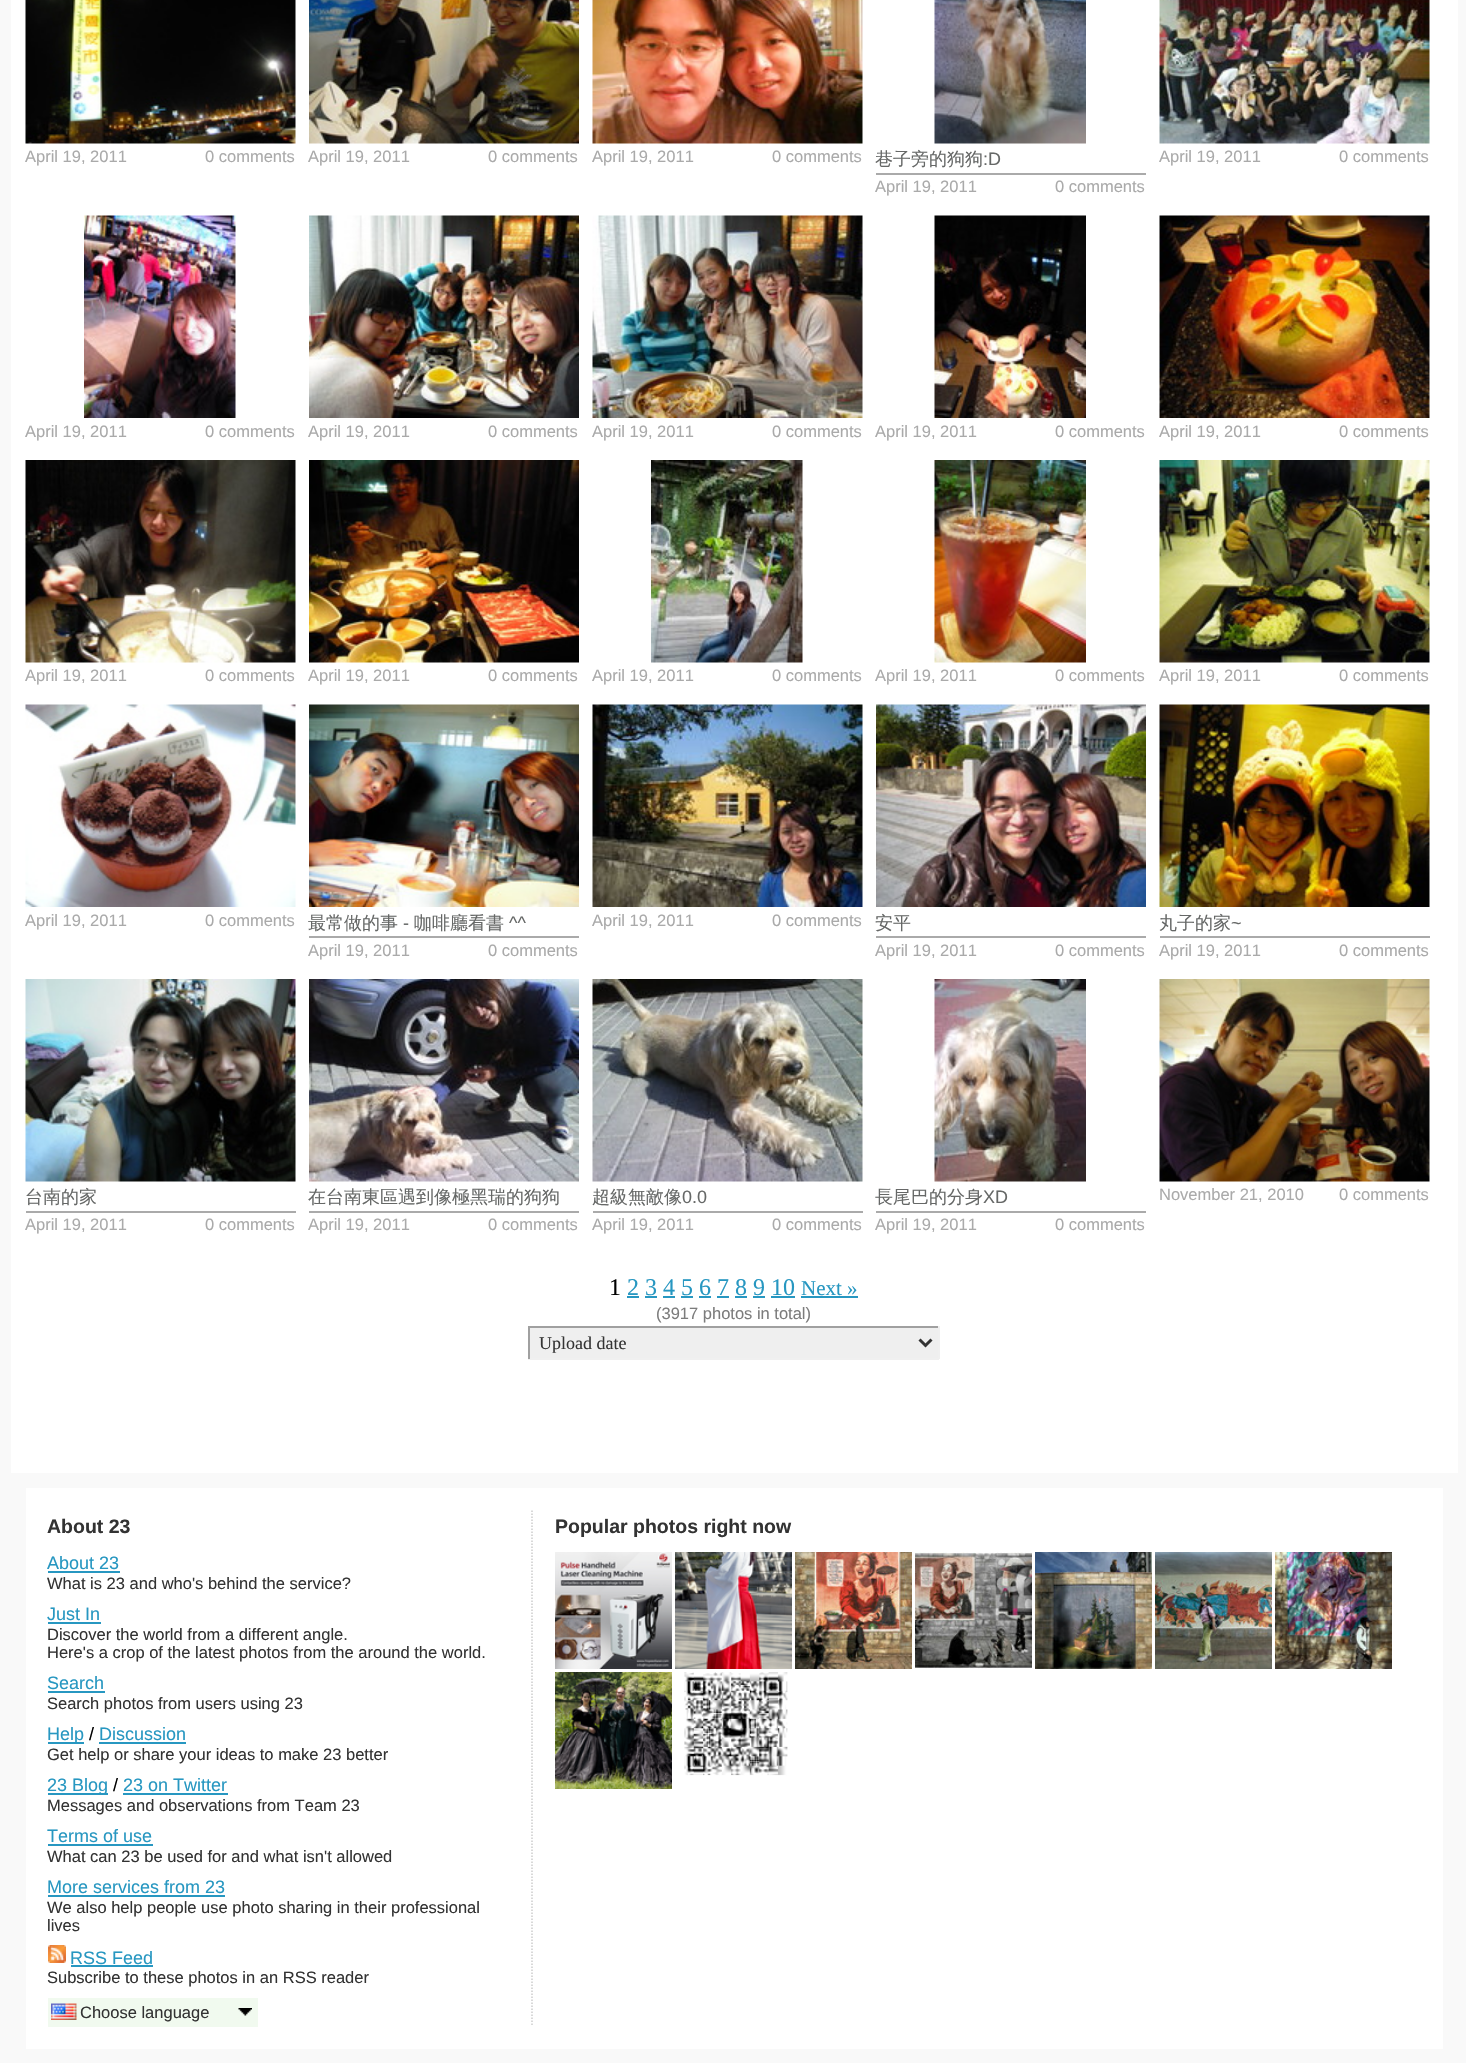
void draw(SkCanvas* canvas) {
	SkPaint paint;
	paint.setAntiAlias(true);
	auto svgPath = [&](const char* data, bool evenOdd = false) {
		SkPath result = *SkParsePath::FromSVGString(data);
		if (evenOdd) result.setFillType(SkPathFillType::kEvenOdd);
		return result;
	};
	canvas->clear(0xfff9f9f9);
	paint.setColor(0xffffffff);
	canvas->drawRect(SkRect::MakeXYWH(11, 0, 1447, 1473), paint);
	canvas->drawImageRect(SkImages::DeferredFromEncodedData(SkData::MakeFromFileName("img1.png")), SkRect::MakeXYWH(25, 0, 271, 144), SkSamplingOptions());
	SkFont f1(fontMgr->matchFamilyStyle("Liberation Sans", SkFontStyle::Normal()), 16.5);
	f1.setSubpixel(true);
	paint.setColor(0xffaaaaaa);
	canvas->drawString("April 19, 2011", 25, 162, f1, paint);
	canvas->drawString("0 comments", 205, 162, f1, paint);
	canvas->drawImageRect(SkImages::DeferredFromEncodedData(SkData::MakeFromFileName("img2.png")), SkRect::MakeXYWH(309, 0, 270, 144), SkSamplingOptions());
	canvas->drawString("April 19, 2011", 308, 162, f1, paint);
	canvas->drawString("0 comments", 488, 162, f1, paint);
	canvas->drawImageRect(SkImages::DeferredFromEncodedData(SkData::MakeFromFileName("img3.png")), SkRect::MakeXYWH(592, 0, 271, 144), SkSamplingOptions());
	canvas->drawString("April 19, 2011", 592, 162, f1, paint);
	canvas->drawString("0 comments", 772, 162, f1, paint);
	canvas->drawImageRect(SkImages::DeferredFromEncodedData(SkData::MakeFromFileName("img4.png")), SkRect::MakeXYWH(934, 0, 152, 144), SkSamplingOptions());
	canvas->drawRect(SkRect::MakeXYWH(876, 173, 270, 2), paint);
	SkFont f2(fontMgr->matchFamilyStyle("WenQuanYi Zen Hei", SkFontStyle(500, SkFontStyle::kNormal_Width, SkFontStyle::kUpright_Slant)), 18);
	f2.setSubpixel(true);
	paint.setColor(0xff666867);
	canvas->drawString("巷子旁的狗狗", 875, 165, f2, paint);
	SkFont f3(fontMgr->matchFamilyStyle("Liberation Sans", SkFontStyle::Normal()), 18);
	f3.setSubpixel(true);
	canvas->drawString(":D", 983, 165, f3, paint);
	paint.setColor(0xffaaaaaa);
	canvas->drawString("April 19, 2011", 875, 192, f1, paint);
	canvas->drawString("0 comments", 1055, 192, f1, paint);
	canvas->drawImageRect(SkImages::DeferredFromEncodedData(SkData::MakeFromFileName("img5.png")), SkRect::MakeXYWH(1159, 0, 271, 144), SkSamplingOptions());
	canvas->drawString("April 19, 2011", 1159, 162, f1, paint);
	canvas->drawString("0 comments", 1339, 162, f1, paint);
	canvas->drawImageRect(SkImages::DeferredFromEncodedData(SkData::MakeFromFileName("img6.png")), SkRect::MakeXYWH(84, 215, 152, 203), SkSamplingOptions());
	canvas->drawString("April 19, 2011", 25, 437, f1, paint);
	canvas->drawString("0 comments", 205, 437, f1, paint);
	canvas->drawImageRect(SkImages::DeferredFromEncodedData(SkData::MakeFromFileName("img7.png")), SkRect::MakeXYWH(309, 215, 270, 203), SkSamplingOptions());
	canvas->drawString("April 19, 2011", 308, 437, f1, paint);
	canvas->drawString("0 comments", 488, 437, f1, paint);
	canvas->drawImageRect(SkImages::DeferredFromEncodedData(SkData::MakeFromFileName("img8.png")), SkRect::MakeXYWH(592, 215, 271, 203), SkSamplingOptions());
	canvas->drawString("April 19, 2011", 592, 437, f1, paint);
	canvas->drawString("0 comments", 772, 437, f1, paint);
	canvas->drawImageRect(SkImages::DeferredFromEncodedData(SkData::MakeFromFileName("img9.png")), SkRect::MakeXYWH(934, 215, 152, 203), SkSamplingOptions());
	canvas->drawString("April 19, 2011", 875, 437, f1, paint);
	canvas->drawString("0 comments", 1055, 437, f1, paint);
	canvas->drawImageRect(SkImages::DeferredFromEncodedData(SkData::MakeFromFileName("img10.png")), SkRect::MakeXYWH(1159, 215, 271, 203), SkSamplingOptions());
	canvas->drawString("April 19, 2011", 1159, 437, f1, paint);
	canvas->drawString("0 comments", 1339, 437, f1, paint);
	canvas->drawImageRect(SkImages::DeferredFromEncodedData(SkData::MakeFromFileName("img11.png")), SkRect::MakeXYWH(25, 460, 271, 203), SkSamplingOptions());
	canvas->drawString("April 19, 2011", 25, 681, f1, paint);
	canvas->drawString("0 comments", 205, 681, f1, paint);
	canvas->drawImageRect(SkImages::DeferredFromEncodedData(SkData::MakeFromFileName("img12.png")), SkRect::MakeXYWH(309, 460, 270, 203), SkSamplingOptions());
	canvas->drawString("April 19, 2011", 308, 681, f1, paint);
	canvas->drawString("0 comments", 488, 681, f1, paint);
	canvas->drawImageRect(SkImages::DeferredFromEncodedData(SkData::MakeFromFileName("img13.png")), SkRect::MakeXYWH(651, 460, 152, 203), SkSamplingOptions());
	canvas->drawString("April 19, 2011", 592, 681, f1, paint);
	canvas->drawString("0 comments", 772, 681, f1, paint);
	canvas->drawImageRect(SkImages::DeferredFromEncodedData(SkData::MakeFromFileName("img14.png")), SkRect::MakeXYWH(934, 460, 152, 203), SkSamplingOptions());
	canvas->drawString("April 19, 2011", 875, 681, f1, paint);
	canvas->drawString("0 comments", 1055, 681, f1, paint);
	canvas->drawImageRect(SkImages::DeferredFromEncodedData(SkData::MakeFromFileName("img15.png")), SkRect::MakeXYWH(1159, 460, 271, 203), SkSamplingOptions());
	canvas->drawString("April 19, 2011", 1159, 681, f1, paint);
	canvas->drawString("0 comments", 1339, 681, f1, paint);
	canvas->drawImageRect(SkImages::DeferredFromEncodedData(SkData::MakeFromFileName("img16.png")), SkRect::MakeXYWH(25, 704, 271, 203), SkSamplingOptions());
	canvas->drawString("April 19, 2011", 25, 926, f1, paint);
	canvas->drawString("0 comments", 205, 926, f1, paint);
	canvas->drawImageRect(SkImages::DeferredFromEncodedData(SkData::MakeFromFileName("img17.png")), SkRect::MakeXYWH(309, 704, 270, 203), SkSamplingOptions());
	canvas->drawRect(SkRect::MakeXYWH(309, 936, 270, 2), paint);
	paint.setColor(0xff666867);
	canvas->drawString("最常做的事", 308, 929, f2, paint);
	canvas->drawString("-", 403, 929, f3, paint);
	canvas->drawString("咖啡廳看書", 414, 929, f2, paint);
	canvas->drawString("^^", 509, 929, f3, paint);
	paint.setColor(0xffaaaaaa);
	canvas->drawString("April 19, 2011", 308, 956, f1, paint);
	canvas->drawString("0 comments", 488, 956, f1, paint);
	canvas->drawImageRect(SkImages::DeferredFromEncodedData(SkData::MakeFromFileName("img18.png")), SkRect::MakeXYWH(592, 704, 271, 203), SkSamplingOptions());
	canvas->drawString("April 19, 2011", 592, 926, f1, paint);
	canvas->drawString("0 comments", 772, 926, f1, paint);
	canvas->drawImageRect(SkImages::DeferredFromEncodedData(SkData::MakeFromFileName("img19.png")), SkRect::MakeXYWH(876, 704, 270, 203), SkSamplingOptions());
	canvas->drawRect(SkRect::MakeXYWH(876, 936, 270, 2), paint);
	paint.setColor(0xff666867);
	canvas->drawString("安平", 875, 929, f2, paint);
	paint.setColor(0xffaaaaaa);
	canvas->drawString("April 19, 2011", 875, 956, f1, paint);
	canvas->drawString("0 comments", 1055, 956, f1, paint);
	canvas->drawImageRect(SkImages::DeferredFromEncodedData(SkData::MakeFromFileName("img20.png")), SkRect::MakeXYWH(1159, 704, 271, 203), SkSamplingOptions());
	canvas->drawRect(SkRect::MakeXYWH(1160, 936, 270, 2), paint);
	paint.setColor(0xff666867);
	canvas->drawString("丸子的家", 1159, 929, f2, paint);
	canvas->drawString("~", 1231, 929, f3, paint);
	paint.setColor(0xffaaaaaa);
	canvas->drawString("April 19, 2011", 1159, 956, f1, paint);
	canvas->drawString("0 comments", 1339, 956, f1, paint);
	canvas->drawImageRect(SkImages::DeferredFromEncodedData(SkData::MakeFromFileName("img21.png")), SkRect::MakeXYWH(25, 979, 271, 203), SkSamplingOptions());
	canvas->drawRect(SkRect::MakeXYWH(26, 1211, 270, 2), paint);
	paint.setColor(0xff666867);
	canvas->drawString("台南的家", 25, 1203, f2, paint);
	paint.setColor(0xffaaaaaa);
	canvas->drawString("April 19, 2011", 25, 1230, f1, paint);
	canvas->drawString("0 comments", 205, 1230, f1, paint);
	canvas->drawImageRect(SkImages::DeferredFromEncodedData(SkData::MakeFromFileName("img22.png")), SkRect::MakeXYWH(309, 979, 270, 203), SkSamplingOptions());
	canvas->drawRect(SkRect::MakeXYWH(309, 1211, 270, 2), paint);
	paint.setColor(0xff666867);
	canvas->drawString("在台南東區遇到像極黑瑞的狗狗", 308, 1203, f2, paint);
	paint.setColor(0xffaaaaaa);
	canvas->drawString("April 19, 2011", 308, 1230, f1, paint);
	canvas->drawString("0 comments", 488, 1230, f1, paint);
	canvas->drawImageRect(SkImages::DeferredFromEncodedData(SkData::MakeFromFileName("img23.png")), SkRect::MakeXYWH(592, 979, 271, 203), SkSamplingOptions());
	canvas->drawRect(SkRect::MakeXYWH(593, 1211, 270, 2), paint);
	paint.setColor(0xff666867);
	canvas->drawString("超級無敵像", 592, 1203, f2, paint);
	canvas->drawString("0.0", 682, 1203, f3, paint);
	paint.setColor(0xffaaaaaa);
	canvas->drawString("April 19, 2011", 592, 1230, f1, paint);
	canvas->drawString("0 comments", 772, 1230, f1, paint);
	canvas->drawImageRect(SkImages::DeferredFromEncodedData(SkData::MakeFromFileName("img24.png")), SkRect::MakeXYWH(934, 979, 152, 203), SkSamplingOptions());
	canvas->drawRect(SkRect::MakeXYWH(876, 1211, 270, 2), paint);
	paint.setColor(0xff666867);
	canvas->drawString("長尾巴的分身", 875, 1203, f2, paint);
	canvas->drawString("XD", 983, 1203, f3, paint);
	paint.setColor(0xffaaaaaa);
	canvas->drawString("April 19, 2011", 875, 1230, f1, paint);
	canvas->drawString("0 comments", 1055, 1230, f1, paint);
	canvas->drawImageRect(SkImages::DeferredFromEncodedData(SkData::MakeFromFileName("img25.png")), SkRect::MakeXYWH(1159, 979, 271, 203), SkSamplingOptions());
	canvas->drawString("November 21, 2010", 1159, 1200, f1, paint);
	canvas->drawString("0 comments", 1339, 1200, f1, paint);
	SkFont f4(fontMgr->matchFamilyStyle("Liberation Serif", SkFontStyle::Normal()), 24);
	f4.setSubpixel(true);
	paint.setColor(0xff000000);
	canvas->drawString("1", 609, 1295, f4, paint);
	paint.setColor(0xff2797c1);
	canvas->drawString("2 3 4 5 6 7 8 9 10", 627, 1295, f4, paint);
	canvas->drawRect(SkRect::MakeXYWH(627, 1296, 12, 2), paint);
	SkFont f5(fontMgr->matchFamilyStyle("Liberation Serif", SkFontStyle::Normal()), 21);
	f5.setSubpixel(true);
	canvas->drawString("Next »", 801, 1295, f5, paint);
	canvas->drawRect(SkRect::MakeXYWH(801, 1296, 57, 2), paint);
	canvas->drawRect(SkRect::MakeXYWH(645, 1296, 12, 2), paint);
	canvas->drawRect(SkRect::MakeXYWH(663, 1296, 12, 2), paint);
	canvas->drawRect(SkRect::MakeXYWH(681, 1296, 12, 2), paint);
	canvas->drawRect(SkRect::MakeXYWH(699, 1296, 12, 2), paint);
	canvas->drawRect(SkRect::MakeXYWH(717, 1296, 12, 2), paint);
	canvas->drawRect(SkRect::MakeXYWH(735, 1296, 12, 2), paint);
	canvas->drawRect(SkRect::MakeXYWH(753, 1296, 12, 2), paint);
	canvas->drawRect(SkRect::MakeXYWH(771, 1296, 24, 2), paint);
	paint.setColor(0xff7c7c7c);
	canvas->drawString("(3917 photos in total)", 656, 1319, f1, paint);
	paint.setColor(0xffefefef);
	canvas->drawRect(SkRect::MakeXYWH(530, 1328, 408, 30), paint);
	paint.setColor(0xffa0a0a0);
	canvas->drawRect(SkRect::MakeXYWH(528, 1326, 411, 2), paint);
	paint.setColor(0xfff0f0f0);
	canvas->drawRect(SkRect::MakeXYWH(938, 1326, 2, 33), paint);
	canvas->drawRect(SkRect::MakeXYWH(528, 1358, 411, 2), paint);
	paint.setColor(0xffa0a0a0);
	canvas->drawRect(SkRect::MakeXYWH(528, 1326, 2, 33), paint);
	paint.setStroke(true);
	paint.setStrokeWidth(3);
	paint.setColor(0xff333333);
	canvas->drawPath(svgPath("M919.5 1339.5L925.5 1345.5L931.5 1339.5"), paint);
	SkFont f6(fontMgr->matchFamilyStyle("Liberation Serif", SkFontStyle::Normal()), 18);
	f6.setSubpixel(true);
	paint.setStroke(false);
	canvas->drawString("Upload date", 539, 1349, f6, paint);
	paint.setColor(0xffffffff);
	canvas->drawRect(SkRect::MakeXYWH(26, 1488, 1417, 561), paint);
	SkFont f7(fontMgr->matchFamilyStyle("Liberation Sans", SkFontStyle::Bold()), 19.5);
	f7.setSubpixel(true);
	paint.setColor(0xff333333);
	canvas->drawString("About 23", 47, 1533, f7, paint);
	paint.setColor(0xff2797c1);
	canvas->drawString("About 23", 47, 1569, f3, paint);
	canvas->drawRect(SkRect::MakeXYWH(48, 1571, 72, 2), paint);
	paint.setColor(0xff333333);
	canvas->drawString("What is 23 and who's behind the service?", 47, 1589, f1, paint);
	paint.setColor(0xff2797c1);
	canvas->drawString("Just In", 47, 1620, f3, paint);
	canvas->drawRect(SkRect::MakeXYWH(48, 1622, 53, 2), paint);
	paint.setColor(0xff333333);
	canvas->drawString("Discover the world from a different angle.", 47, 1640, f1, paint);
	canvas->drawString("Here's a crop of the latest photos from the around the world.", 47, 1658, f1, paint);
	paint.setColor(0xff2797c1);
	canvas->drawString("Search", 47, 1689, f3, paint);
	canvas->drawRect(SkRect::MakeXYWH(48, 1691, 57, 2), paint);
	paint.setColor(0xff333333);
	canvas->drawString("Search photos from users using 23", 47, 1709, f1, paint);
	paint.setColor(0xff2797c1);
	canvas->drawRect(SkRect::MakeXYWH(48, 1742, 36, 2), paint);
	canvas->drawString("Help", 47, 1740, f3, paint);
	paint.setColor(0xff000000);
	canvas->drawString("/", 89, 1740, f3, paint);
	paint.setColor(0xff2797c1);
	canvas->drawString("Discussion", 99, 1740, f3, paint);
	canvas->drawRect(SkRect::MakeXYWH(99, 1742, 87, 2), paint);
	paint.setColor(0xff333333);
	canvas->drawString("Get help or share your ideas to make 23 better", 47, 1760, f1, paint);
	paint.setColor(0xff2797c1);
	canvas->drawRect(SkRect::MakeXYWH(48, 1793, 60, 2), paint);
	canvas->drawString("23 Blog", 47, 1791, f3, paint);
	paint.setColor(0xff000000);
	canvas->drawString("/", 113, 1791, f3, paint);
	paint.setColor(0xff2797c1);
	canvas->drawString("23 on Twitter", 123, 1791, f3, paint);
	canvas->drawRect(SkRect::MakeXYWH(123, 1793, 105, 2), paint);
	paint.setColor(0xff333333);
	canvas->drawString("Messages and observations from Team 23", 47, 1811, f1, paint);
	paint.setColor(0xff2797c1);
	canvas->drawString("Terms of use", 47, 1842, f3, paint);
	canvas->drawRect(SkRect::MakeXYWH(48, 1844, 105, 2), paint);
	paint.setColor(0xff333333);
	canvas->drawString("What can 23 be used for and what isn't allowed", 47, 1862, f1, paint);
	paint.setColor(0xff2797c1);
	canvas->drawString("More services from 23", 47, 1893, f3, paint);
	canvas->drawRect(SkRect::MakeXYWH(48, 1895, 177, 2), paint);
	paint.setColor(0xff333333);
	canvas->drawString("We also help people use photo sharing in their professional", 47, 1913, f1, paint);
	canvas->drawString("lives", 47, 1931, f1, paint);
	canvas->drawImageRect(SkImages::DeferredFromEncodedData(SkData::MakeFromFileName("img26.png")), SkRect::MakeXYWH(48, 1945, 18, 18), SkSamplingOptions());
	paint.setColor(0xff2797c1);
	canvas->drawString("RSS Feed", 70, 1964, f3, paint);
	canvas->drawRect(SkRect::MakeXYWH(71, 1965, 82, 2), paint);
	paint.setColor(0xff333333);
	canvas->drawString("Subscribe to these photos in an RSS reader", 47, 1983, f1, paint);
	paint.setColor(0xfff1faef);
	canvas->drawRect(SkRect::MakeXYWH(48, 1998, 210, 29), paint);
	canvas->drawImageRect(SkImages::DeferredFromEncodedData(SkData::MakeFromFileName("img27.png")), SkRect::MakeXYWH(238, 2008, 14, 8), SkSamplingOptions());
	canvas->drawImageRect(SkImages::DeferredFromEncodedData(SkData::MakeFromFileName("img28.png")), SkRect::MakeXYWH(51, 2003, 26, 17), SkSamplingOptions());
	paint.setColor(0xff333333);
	canvas->drawString("Choose language", 80, 2018, f1, paint);
	paint.setStroke(true);
	paint.setStrokeWidth(1.5);
	paint.setColor(0xffcdcdcd);
	paint.setPathEffect(SkDashPathEffect::Make({{1.5f, 1.5f}}, 0));
	canvas->drawPath(svgPath("M532 1510.5V2026.5"), paint);
	paint.setPathEffect(nullptr);
	paint.setStroke(false);
	paint.setColor(0xff333333);
	canvas->drawString("Popular photos right now", 555, 1533, f7, paint);
	canvas->drawImageRect(SkImages::DeferredFromEncodedData(SkData::MakeFromFileName("img29.png")), SkRect::MakeXYWH(555, 1552, 117, 117), SkSamplingOptions());
	canvas->drawImageRect(SkImages::DeferredFromEncodedData(SkData::MakeFromFileName("img30.png")), SkRect::MakeXYWH(675, 1552, 117, 117), SkSamplingOptions());
	canvas->drawImageRect(SkImages::DeferredFromEncodedData(SkData::MakeFromFileName("img31.png")), SkRect::MakeXYWH(795, 1552, 117, 117), SkSamplingOptions());
	canvas->drawImageRect(SkImages::DeferredFromEncodedData(SkData::MakeFromFileName("img32.png")), SkRect::MakeXYWH(915, 1552, 117, 117), SkSamplingOptions());
	canvas->drawImageRect(SkImages::DeferredFromEncodedData(SkData::MakeFromFileName("img33.png")), SkRect::MakeXYWH(1035, 1552, 117, 117), SkSamplingOptions());
	canvas->drawImageRect(SkImages::DeferredFromEncodedData(SkData::MakeFromFileName("img34.png")), SkRect::MakeXYWH(1155, 1552, 117, 117), SkSamplingOptions());
	canvas->drawImageRect(SkImages::DeferredFromEncodedData(SkData::MakeFromFileName("img35.png")), SkRect::MakeXYWH(1275, 1552, 117, 117), SkSamplingOptions());
	canvas->drawImageRect(SkImages::DeferredFromEncodedData(SkData::MakeFromFileName("img36.png")), SkRect::MakeXYWH(555, 1672, 117, 117), SkSamplingOptions());
	canvas->drawImageRect(SkImages::DeferredFromEncodedData(SkData::MakeFromFileName("img37.png")), SkRect::MakeXYWH(684, 1672, 104, 104), SkSamplingOptions());
}
